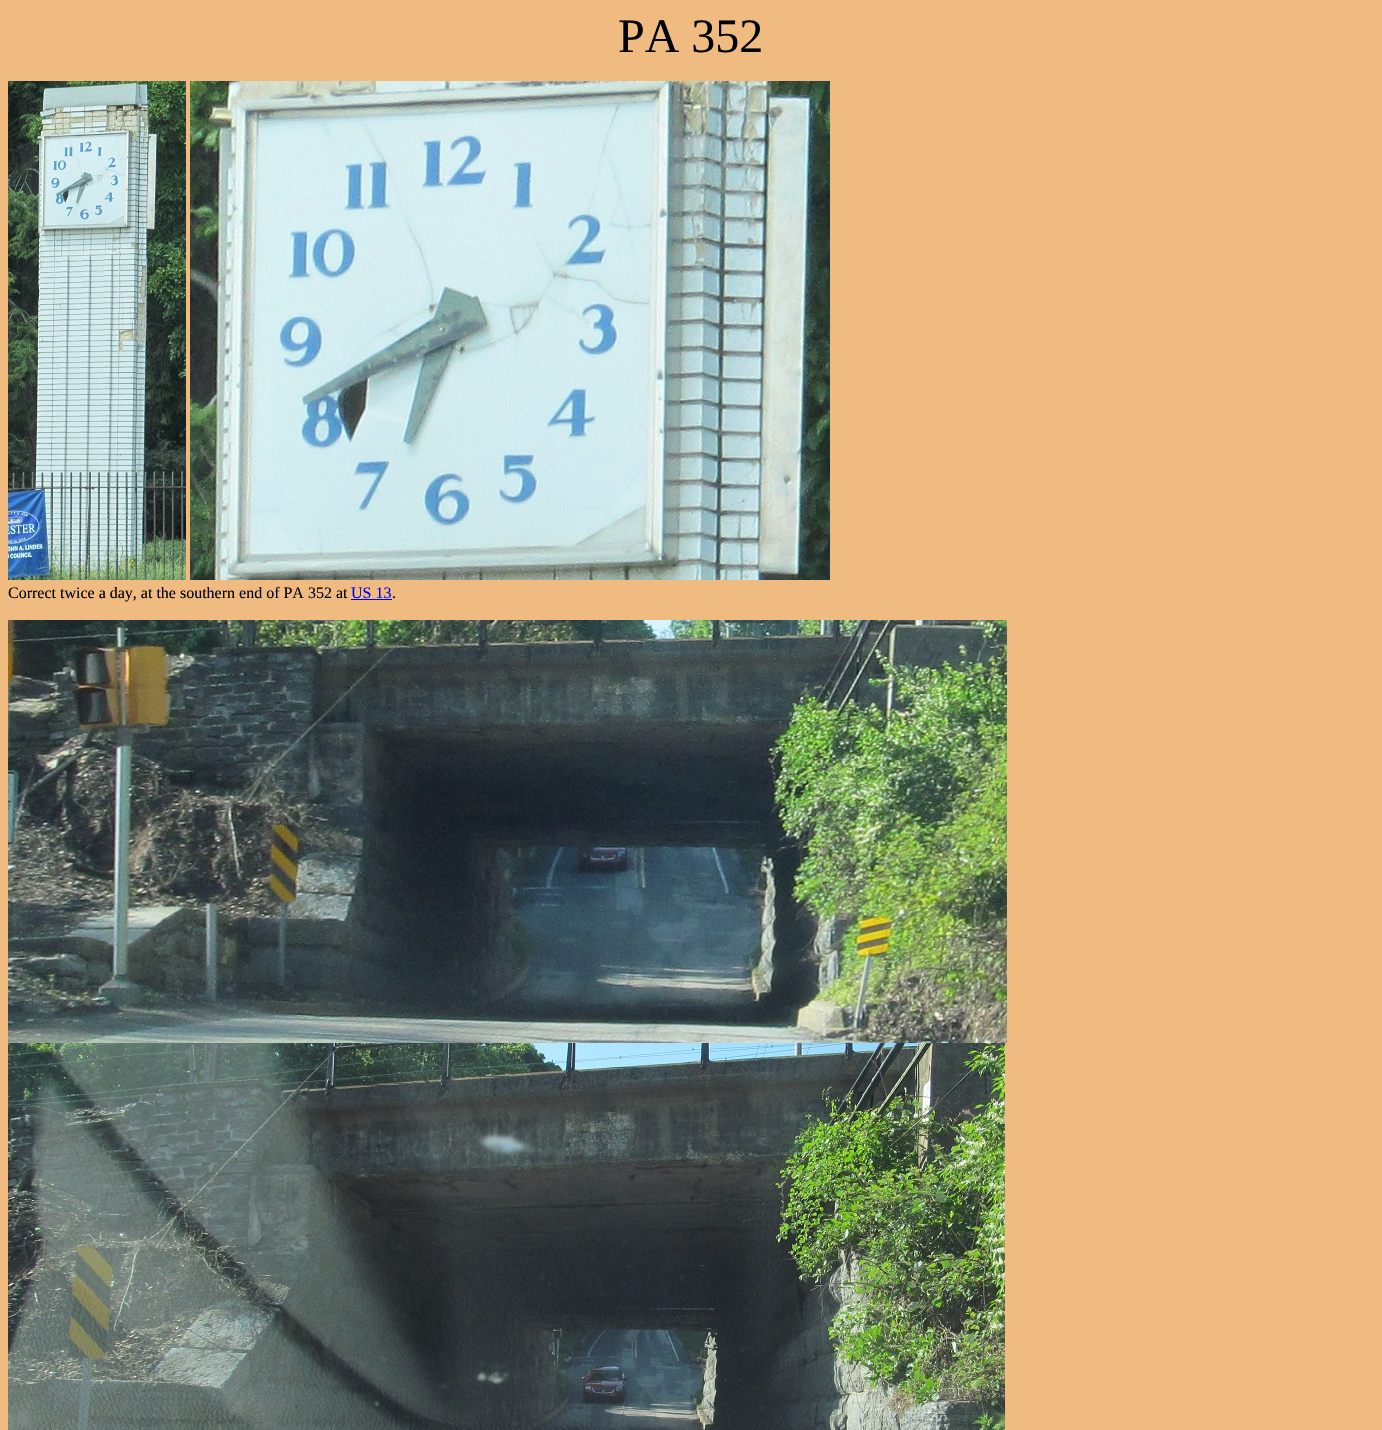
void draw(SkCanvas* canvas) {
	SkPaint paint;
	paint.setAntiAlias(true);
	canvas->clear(0xfff0bb80);
	SkFont f1(fontMgr->matchFamilyStyle("Liberation Serif", SkFontStyle::Normal()), 48);
	f1.setSubpixel(true);
	paint.setColor(0xff000000);
	canvas->drawString("PA 352", 618, 52, f1, paint);
	canvas->drawImageRect(SkImages::DeferredFromEncodedData(SkData::MakeFromFileName("img1.png")), SkRect::MakeXYWH(8, 81, 178, 499), SkSamplingOptions());
	canvas->drawImageRect(SkImages::DeferredFromEncodedData(SkData::MakeFromFileName("img2.png")), SkRect::MakeXYWH(190, 81, 640, 499), SkSamplingOptions());
	SkFont f2(fontMgr->matchFamilyStyle("Liberation Serif", SkFontStyle::Normal()), 16);
	f2.setSubpixel(true);
	canvas->drawString("Correct twice a day, at the southern end of PA 352 at", 8, 598, f2, paint);
	paint.setColor(0xff0000ee);
	canvas->drawString("US 13", 351, 598, f2, paint);
	paint.setColor(0xff000000);
	canvas->drawString(".", 392, 598, f2, paint);
	paint.setColor(0xff0000ee);
	canvas->drawRect(SkRect::MakeXYWH(351, 599, 41, 1), paint);
	canvas->drawImageRect(SkImages::DeferredFromEncodedData(SkData::MakeFromFileName("img3.png")), SkRect::MakeXYWH(8, 620, 999, 423), SkSamplingOptions());
	canvas->drawImageRect(SkImages::DeferredFromEncodedData(SkData::MakeFromFileName("img4.png")), SkRect::MakeXYWH(8, 1043, 997, 387), SkSamplingOptions());
}
